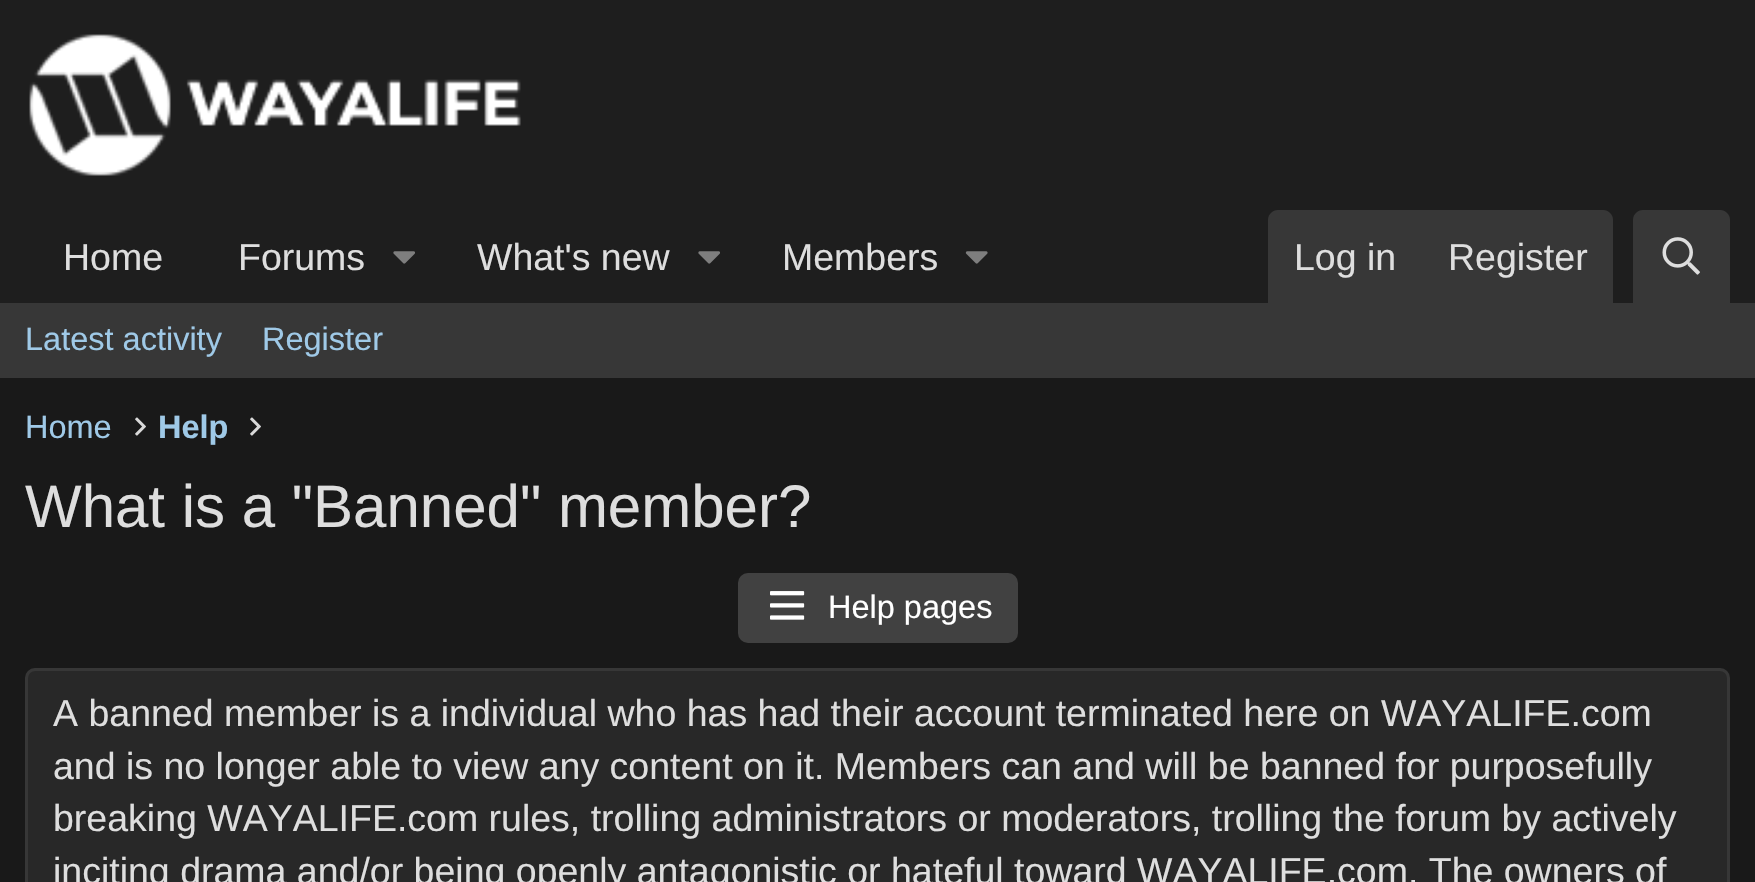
void draw(SkCanvas* canvas) {
	SkPaint paint;
	paint.setAntiAlias(true);
	auto svgPath = [&](const char* data, bool evenOdd = false) {
		SkPath result = *SkParsePath::FromSVGString(data);
		if (evenOdd) result.setFillType(SkPathFillType::kEvenOdd);
		return result;
	};
	canvas->clear(0xff191919);
	paint.setColor(0xff1e1e1e);
	canvas->drawRect(SkRect::MakeXYWH(0, 0, 1755, 303), paint);
	canvas->drawImageRect(SkImages::DeferredFromEncodedData(SkData::MakeFromFileName("img1.png")), SkRect::MakeXYWH(29, 34, 492, 142), SkSamplingOptions());
	SkFont f1(fontMgr->matchFamilyStyle("Liberation Sans", SkFontStyle::Normal()), 37.5);
	f1.setSubpixel(true);
	paint.setColor(0xffdedede);
	canvas->drawString("Home", 63, 270, f1, paint);
	canvas->drawString("Forums", 238, 270, f1, paint);
	canvas->drawImageRect(SkImages::DeferredFromEncodedData(SkData::MakeFromFileName("img2.png")), SkRect::MakeXYWH(393, 251, 22, 13), SkSamplingOptions());
	canvas->drawString("What's new", 477, 270, f1, paint);
	canvas->drawImageRect(SkImages::DeferredFromEncodedData(SkData::MakeFromFileName("img2.png")), SkRect::MakeXYWH(698, 251, 22, 13), SkSamplingOptions());
	canvas->drawString("Members", 782, 270, f1, paint);
	canvas->drawImageRect(SkImages::DeferredFromEncodedData(SkData::MakeFromFileName("img3.png")), SkRect::MakeXYWH(965, 251, 23, 13), SkSamplingOptions());
	paint.setColor(0xff373737);
	canvas->drawPath(svgPath("M1278 210H1603C1608.5 210 1613 214.5 1613 220V303H1268V220C1268 214.5 1272.5 210 1278 210Z"), paint);
	paint.setColor(0xffdedede);
	canvas->drawString("Log in", 1294, 270, f1, paint);
	canvas->drawString("Register", 1448, 270, f1, paint);
	paint.setColor(0xff373737);
	canvas->drawPath(svgPath("M1643 210H1720C1725.5 210 1730 214.5 1730 220V303H1633V220C1633 214.5 1637.5 210 1643 210Z"), paint);
	canvas->drawImageRect(SkImages::DeferredFromEncodedData(SkData::MakeFromFileName("img4.png")), SkRect::MakeXYWH(1662, 237, 38, 38), SkSamplingOptions());
	canvas->drawRect(SkRect::MakeXYWH(0, 303, 1755, 75), paint);
	SkFont f2(fontMgr->matchFamilyStyle("Liberation Sans", SkFontStyle::Normal()), 32.5);
	f2.setSubpixel(true);
	paint.setColor(0xff9fc9e7);
	canvas->drawString("Latest activity", 25, 350, f2, paint);
	canvas->drawString("Register", 262, 350, f2, paint);
	canvas->drawString("Home", 25, 438, f2, paint);
	canvas->drawImageRect(SkImages::DeferredFromEncodedData(SkData::MakeFromFileName("img5.png")), SkRect::MakeXYWH(135, 417, 11, 19), SkSamplingOptions());
	SkFont f3(fontMgr->matchFamilyStyle("Liberation Sans", SkFontStyle::Bold()), 32.5);
	f3.setSubpixel(true);
	canvas->drawString("Help", 158, 438, f3, paint);
	canvas->drawImageRect(SkImages::DeferredFromEncodedData(SkData::MakeFromFileName("img5.png")), SkRect::MakeXYWH(250, 417, 11, 19), SkSamplingOptions());
	SkFont f4(fontMgr->matchFamilyStyle("Liberation Sans", SkFontStyle::Normal()), 60);
	f4.setSubpixel(true);
	paint.setColor(0xffdedede);
	canvas->drawString("What is a \"Banned\" member?", 25, 527, f4, paint);
	paint.setColor(0xff414141);
	canvas->drawRoundRect(SkRect::MakeXYWH(738, 573, 280, 70), 10, 10, paint);
	canvas->drawImageRect(SkImages::DeferredFromEncodedData(SkData::MakeFromFileName("img6.png")), SkRect::MakeXYWH(770, 591, 35, 29), SkSamplingOptions());
	paint.setColor(0xffffffff);
	canvas->drawString("Help pages", 828, 618, f2, paint);
	paint.setColor(0xff282828);
	canvas->drawRoundRect(SkRect::MakeXYWH(26.5, 669.5, 1702, 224), 8.5, 8.5, paint);
	paint.setStroke(true);
	paint.setStrokeWidth(3);
	paint.setColor(0xff373737);
	canvas->drawRoundRect(SkRect::MakeXYWH(26.5, 669.5, 1702, 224), 8.5, 8.5, paint);
	paint.setStroke(false);
	paint.setColor(0xffdedede);
	canvas->drawString("A banned member is a individual who has had their account terminated here on WAYALIFE.com", 53, 726, f1, paint);
	canvas->drawString("and is no longer able to view any content on it. Members can and will be banned for purposefully", 53, 779, f1, paint);
	canvas->drawString("breaking WAYALIFE.com rules, trolling administrators or moderators, trolling the forum by actively", 53, 831, f1, paint);
	canvas->drawString("inciting drama and/or being openly antagonistic or hateful toward WAYALIFE.com. The owners of", 53, 884, f1, paint);
}
